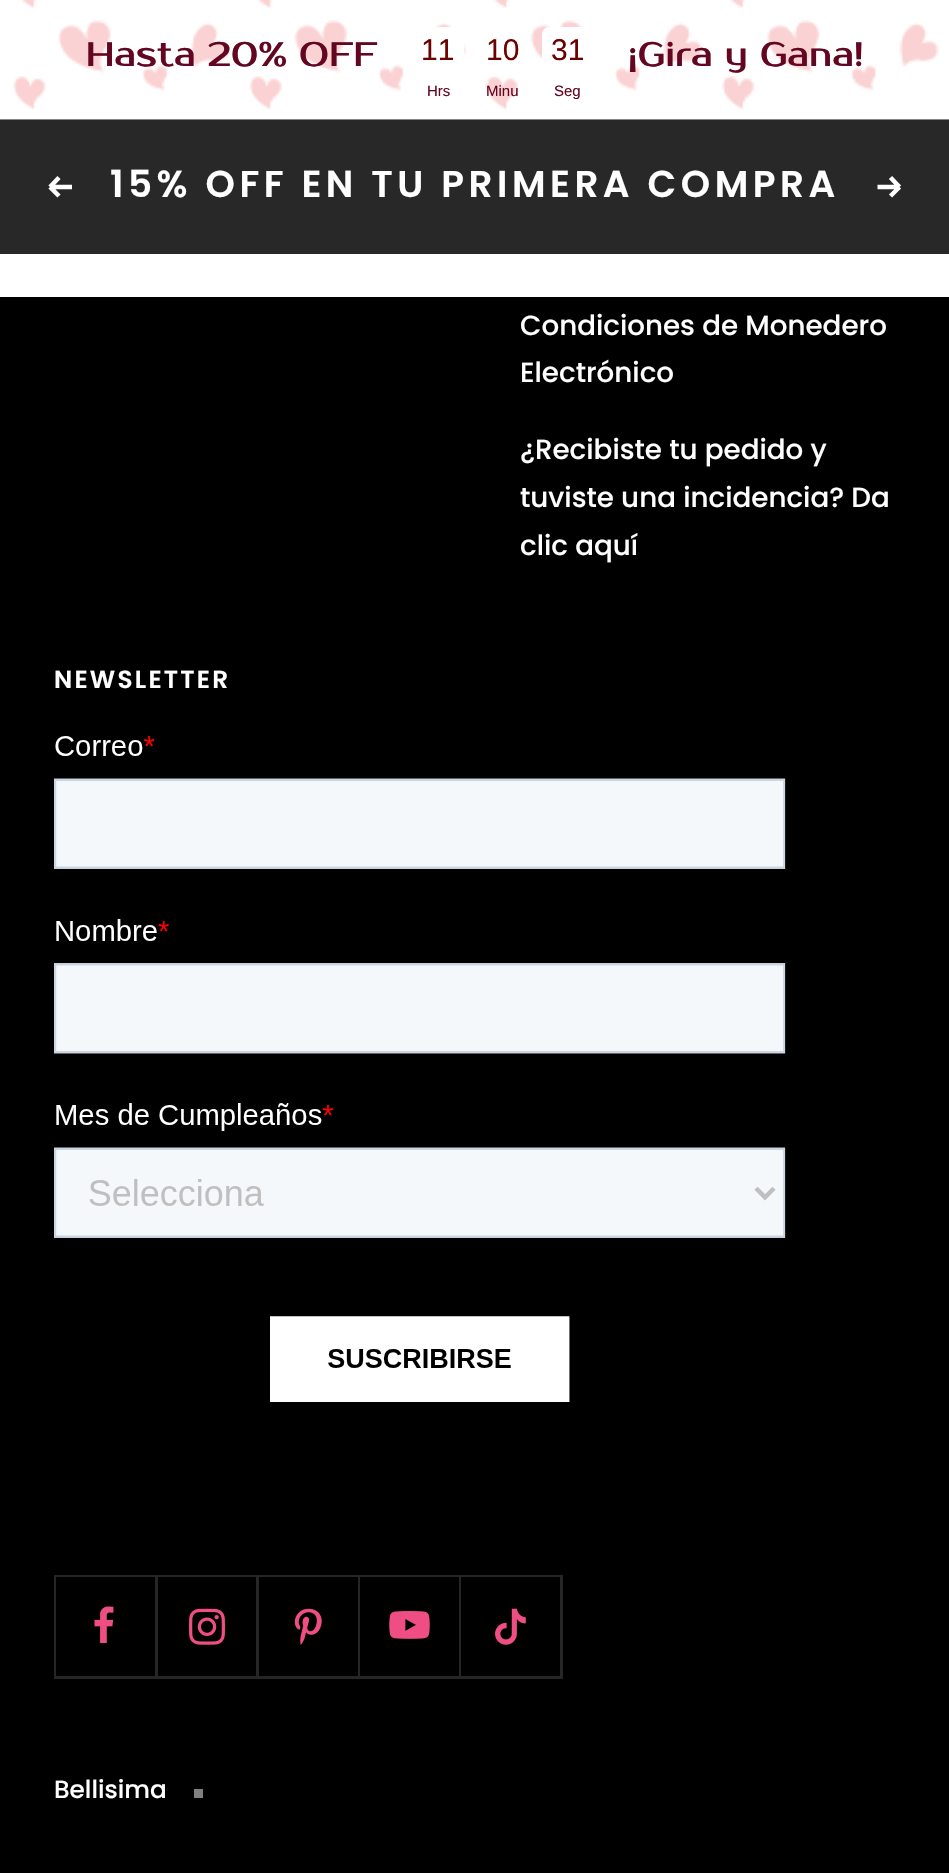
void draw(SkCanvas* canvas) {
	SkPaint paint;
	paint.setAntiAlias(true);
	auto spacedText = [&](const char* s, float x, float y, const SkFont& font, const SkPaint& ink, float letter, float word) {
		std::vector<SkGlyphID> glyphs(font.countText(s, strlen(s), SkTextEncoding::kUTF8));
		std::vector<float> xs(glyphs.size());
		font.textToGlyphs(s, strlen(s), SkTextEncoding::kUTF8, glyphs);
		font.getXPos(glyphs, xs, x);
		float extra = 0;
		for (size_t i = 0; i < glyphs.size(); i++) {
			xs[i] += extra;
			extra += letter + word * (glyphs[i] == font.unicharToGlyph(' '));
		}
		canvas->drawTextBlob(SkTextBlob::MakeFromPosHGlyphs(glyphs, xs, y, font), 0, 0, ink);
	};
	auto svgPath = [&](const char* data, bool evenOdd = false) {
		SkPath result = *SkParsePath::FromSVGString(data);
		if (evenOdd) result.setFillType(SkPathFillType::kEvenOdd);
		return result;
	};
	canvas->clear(0xff000000);
	paint.setColor(0xff282828);
	canvas->drawRect(SkRect::MakeXYWH(0, 119, 949, 135), paint);
	canvas->drawImageRect(SkImages::DeferredFromEncodedData(SkData::MakeFromFileName("img1.png")), SkRect::MakeXYWH(0, 0, 949, 120), SkSamplingOptions());
	SkFont f1(fontMgr->matchFamilyStyle("Prosto One", SkFontStyle::Normal()), 33.75);
	f1.setSubpixel(true);
	paint.setColor(0xff630621);
	canvas->drawString("Hasta 20% OFF", 86, 66, f1, paint);
	paint.setColor(0xffffffff);
	canvas->drawRoundRect(SkRect::MakeXYWH(414, 27, 50, 50), 7, 7, paint);
	SkFont f2(fontMgr->matchFamilyStyle("Liberation Sans", SkFontStyle::Normal()), 30);
	f2.setSubpixel(true);
	paint.setColor(0xff6d0000);
	canvas->drawString("11", 421, 60, f2, paint);
	paint.setColor(0xffffffff);
	canvas->drawRoundRect(SkRect::MakeXYWH(477, 27, 52, 50), 7, 7, paint);
	paint.setColor(0xff6d0000);
	canvas->drawString("10", 486, 60, f2, paint);
	paint.setColor(0xffffffff);
	canvas->drawRoundRect(SkRect::MakeXYWH(542, 27, 50, 50), 7, 7, paint);
	paint.setColor(0xff6d0000);
	canvas->drawString("31", 551, 60, f2, paint);
	SkFont f3(fontMgr->matchFamilyStyle("Liberation Sans", SkFontStyle::Normal()), 15);
	f3.setSubpixel(true);
	paint.setColor(0xff630621);
	canvas->drawString("Hrs", 427, 96, f3, paint);
	canvas->drawString("Minu", 486, 96, f3, paint);
	canvas->drawString("Seg", 554, 96, f3, paint);
	canvas->drawString("¡Gira y Gana!", 628, 66, f1, paint);
	paint.setStroke(true);
	paint.setStrokeWidth(4.5);
	paint.setColor(0xffffffff);
	canvas->drawPath(svgPath("M72 187H50M50 187L59 196M50 187L59 177.5"), paint);
	SkFont f4(fontMgr->matchFamilyStyle("Poppins", SkFontStyle(600, SkFontStyle::kNormal_Width, SkFontStyle::kUpright_Slant)), 37.4);
	f4.setSubpixel(true);
	paint.setStroke(false);
	spacedText("15% OFF EN TU PRIMERA COMPRA", 110, 197, f4, paint, 4.5, 0);
	paint.setStroke(true);
	canvas->drawPath(svgPath("M877.5 187H899.5M899.5 187L890.5 196M899.5 187L890.5 177.5"), paint);
	paint.setStroke(false);
	canvas->drawRect(SkRect::MakeXYWH(0, 254, 949, 43), paint);
	SkFont f5(fontMgr->matchFamilyStyle("Poppins", SkFontStyle(500, SkFontStyle::kNormal_Width, SkFontStyle::kUpright_Slant)), 27.75);
	f5.setSubpixel(true);
	canvas->drawString("Condiciones de Monedero", 520, 335, f5, paint);
	canvas->drawString("Electrónico", 520, 382, f5, paint);
	canvas->drawString("¿Recibiste tu pedido y", 520, 459, f5, paint);
	canvas->drawString("tuviste una incidencia? Da", 520, 507, f5, paint);
	canvas->drawString("clic aquí", 520, 555, f5, paint);
	SkFont f6(fontMgr->matchFamilyStyle("Poppins", SkFontStyle(600, SkFontStyle::kNormal_Width, SkFontStyle::kUpright_Slant)), 24.75);
	f6.setSubpixel(true);
	spacedText("NEWSLETTER", 54, 688, f6, paint, 2.25, 0);
	canvas->drawImageRect(SkImages::DeferredFromEncodedData(SkData::MakeFromFileName("img2.png")), SkRect::MakeXYWH(54, 736, 732, 666), SkSamplingOptions());
	paint.setColor(0xff262626);
	canvas->drawPath(svgPath("M56 1676V1679H158V1577H155V1676Z"), paint);
	canvas->drawRect(SkRect::MakeXYWH(54, 1676, 2, 3), paint);
	canvas->drawRect(SkRect::MakeXYWH(54, 1575, 104, 2), paint);
	canvas->drawRect(SkRect::MakeXYWH(54, 1575, 2, 101), paint);
	canvas->drawImageRect(SkImages::DeferredFromEncodedData(SkData::MakeFromFileName("img3.png")), SkRect::MakeXYWH(94, 1606, 20, 37), SkSamplingOptions());
	canvas->drawPath(svgPath("M158 1676V1679H259V1577H256V1676Z"), paint);
	canvas->drawRect(SkRect::MakeXYWH(155, 1575, 104, 2), paint);
	canvas->drawImageRect(SkImages::DeferredFromEncodedData(SkData::MakeFromFileName("img4.png")), SkRect::MakeXYWH(189, 1608, 36, 37), SkSamplingOptions());
	canvas->drawPath(svgPath("M259 1676V1679H360V1577H358V1676Z"), paint);
	canvas->drawRect(SkRect::MakeXYWH(257, 1575, 103, 2), paint);
	canvas->drawImageRect(SkImages::DeferredFromEncodedData(SkData::MakeFromFileName("img5.png")), SkRect::MakeXYWH(294, 1608, 28, 37), SkSamplingOptions());
	canvas->drawPath(svgPath("M360 1676V1679H461V1577H459V1676Z"), paint);
	canvas->drawRect(SkRect::MakeXYWH(358, 1575, 103, 2), paint);
	canvas->drawImageRect(SkImages::DeferredFromEncodedData(SkData::MakeFromFileName("img6.png")), SkRect::MakeXYWH(389, 1611, 41, 28), SkSamplingOptions());
	canvas->drawPath(svgPath("M461 1676V1679H563V1577H560V1676Z"), paint);
	canvas->drawRect(SkRect::MakeXYWH(459, 1575, 104, 2), paint);
	canvas->drawImageRect(SkImages::DeferredFromEncodedData(SkData::MakeFromFileName("img7.png")), SkRect::MakeXYWH(495, 1608, 31, 37), SkSamplingOptions());
	SkFont f7(fontMgr->matchFamilyStyle("Poppins", SkFontStyle(500, SkFontStyle::kNormal_Width, SkFontStyle::kUpright_Slant)), 24.75);
	f7.setSubpixel(true);
	paint.setColor(0xffffffff);
	canvas->drawString("Bellisima", 54, 1798, f7, paint);
	paint.setColor(0xff808080);
	canvas->drawRect(SkRect::MakeXYWH(194, 1789, 9, 9), paint);
}
